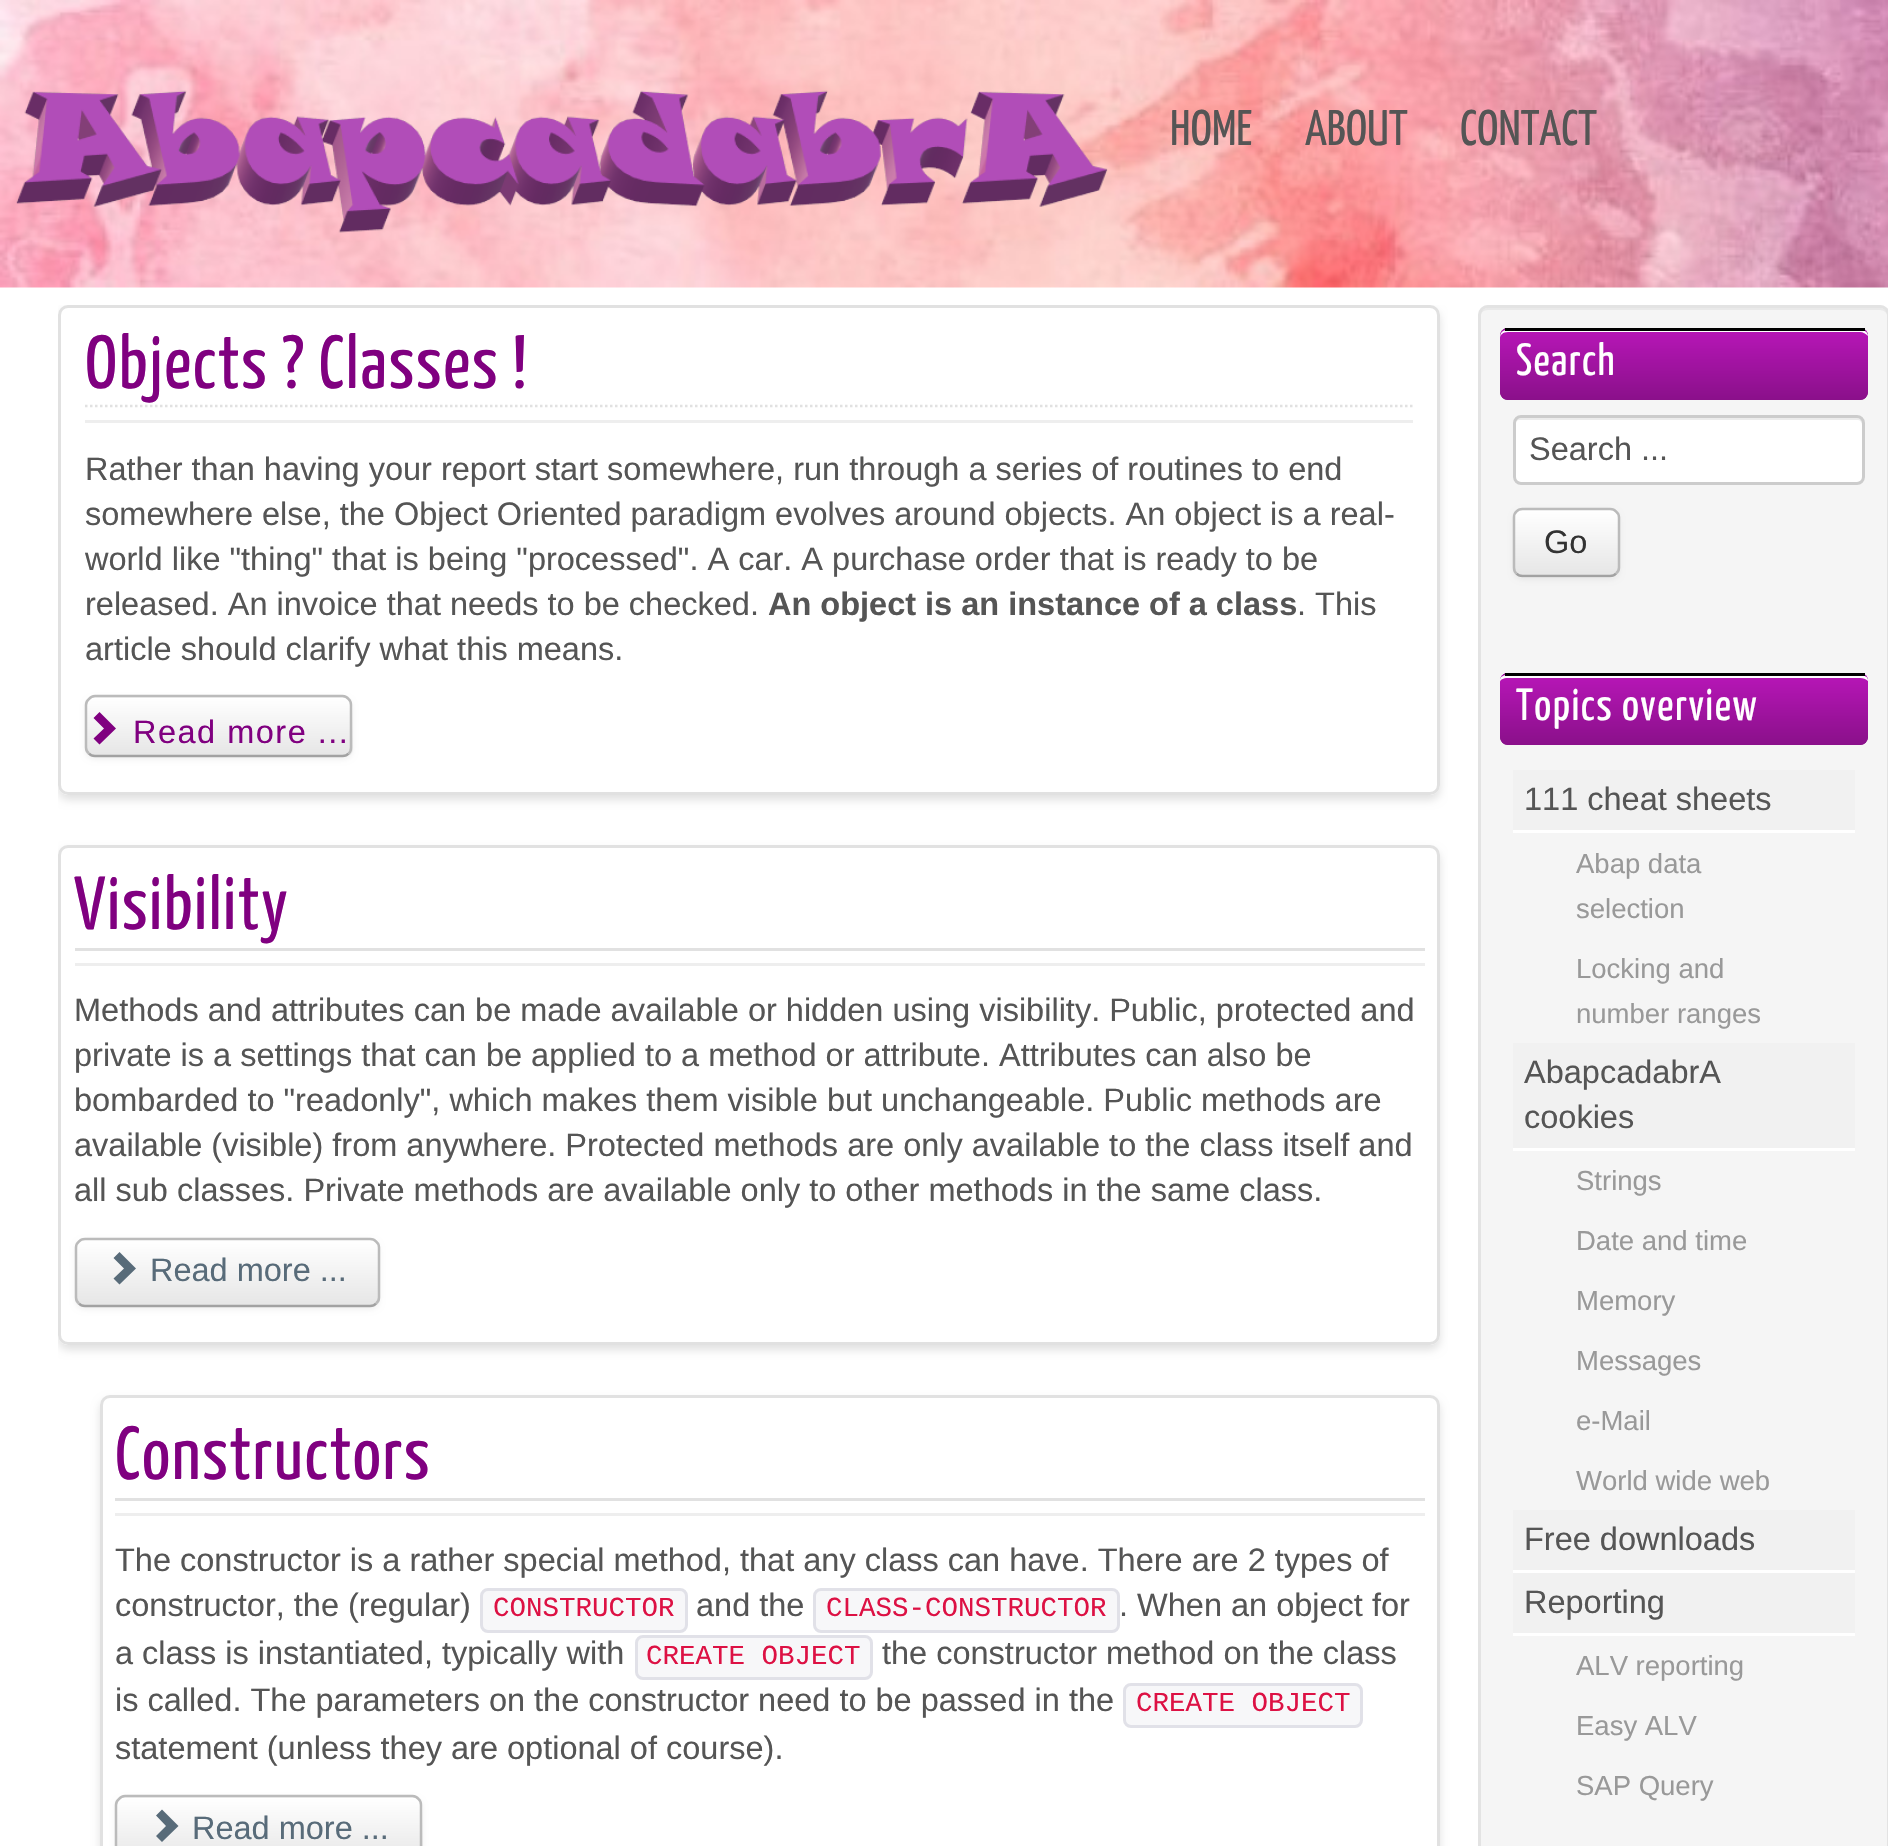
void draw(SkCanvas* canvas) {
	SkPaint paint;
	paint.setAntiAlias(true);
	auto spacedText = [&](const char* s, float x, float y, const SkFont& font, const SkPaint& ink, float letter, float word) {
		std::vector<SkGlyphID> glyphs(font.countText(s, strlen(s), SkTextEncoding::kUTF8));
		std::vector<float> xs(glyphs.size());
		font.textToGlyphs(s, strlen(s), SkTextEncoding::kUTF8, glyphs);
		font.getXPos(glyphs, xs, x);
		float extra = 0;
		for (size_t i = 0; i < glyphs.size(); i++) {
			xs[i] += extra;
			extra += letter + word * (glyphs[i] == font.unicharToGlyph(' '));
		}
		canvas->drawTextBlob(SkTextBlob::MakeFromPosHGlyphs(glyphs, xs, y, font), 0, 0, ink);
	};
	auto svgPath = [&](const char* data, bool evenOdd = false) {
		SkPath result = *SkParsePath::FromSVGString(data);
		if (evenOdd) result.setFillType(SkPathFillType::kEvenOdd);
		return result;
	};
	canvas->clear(0xffffffff);
	canvas->drawImageRect(SkImages::DeferredFromEncodedData(SkData::MakeFromFileName("img1.png")), SkRect::MakeXYWH(0, 0, 1888, 288), SkSamplingOptions());
	canvas->drawImageRect(SkImages::DeferredFromEncodedData(SkData::MakeFromFileName("img2.png")), SkRect::MakeXYWH(16, 90, 1092, 143), SkSamplingOptions());
	SkFont f1(fontMgr->matchFamilyStyle("Yanone Kaffeesatz", SkFontStyle(200, SkFontStyle::kNormal_Width, SkFontStyle::kUpright_Slant)), 50);
	f1.setSubpixel(true);
	paint.setColor(0xff555555);
	canvas->drawString("HOME", 1170, 145, f1, paint);
	canvas->drawString("ABOUT", 1305, 145, f1, paint);
	canvas->drawString("CONTACT", 1460, 145, f1, paint);
	canvas->save();
	canvas->clipRect(SkRect::MakeXYWH(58, 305, 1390, 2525));
	canvas->clipPath(svgPath("M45 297H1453V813H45ZM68 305H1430C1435.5 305 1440 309.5 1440 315V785C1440 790.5 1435.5 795 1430 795H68C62.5 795 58 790.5 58 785V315C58 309.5 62.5 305 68 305Z", true), true);
	paint.setColor(0xffe1e1e1);
	paint.setMaskFilter(SkMaskFilter::MakeBlur(kNormal_SkBlurStyle, 4));
	canvas->drawRoundRect(SkRect::MakeXYWH(58, 310, 1382, 490), 10, 10, paint);
	paint.setMaskFilter(nullptr);
	canvas->restore();
	paint.setStroke(true);
	paint.setStrokeWidth(3);
	canvas->drawRoundRect(SkRect::MakeXYWH(59.5, 306.5, 1379, 487), 8.5, 8.5, paint);
	paint.setStroke(false);
	paint.setColor(0xffeeeeee);
	canvas->drawRect(SkRect::MakeXYWH(85, 420, 1328, 3), paint);
	paint.setStroke(true);
	paint.setStrokeWidth(2.5);
	paint.setColor(0xffe1e1e1);
	paint.setPathEffect(SkDashPathEffect::Make({{2.5f, 2.5f}}, 0));
	canvas->drawPath(svgPath("M85 406H1412.5"), paint);
	paint.setPathEffect(nullptr);
	SkFont f2(fontMgr->matchFamilyStyle("Yanone Kaffeesatz", SkFontStyle(200, SkFontStyle::kNormal_Width, SkFontStyle::kUpright_Slant)), 75);
	f2.setSubpixel(true);
	paint.setStroke(false);
	paint.setColor(0xff800080);
	spacedText("Objects ? Classes !", 85, 388, f2, paint, 1.5, 0);
	SkFont f3(fontMgr->matchFamilyStyle("Liberation Sans", SkFontStyle::Normal()), 32.5);
	f3.setSubpixel(true);
	paint.setColor(0xff555555);
	canvas->drawString("Rather than having your report start somewhere, run through a series of routines to end", 85, 480, f3, paint);
	canvas->drawString("somewhere else, the Object Oriented paradigm evolves around objects. An object is a real-", 85, 525, f3, paint);
	canvas->drawString("world like \"thing\" that is being \"processed\". A car. A purchase order that is ready to be", 85, 570, f3, paint);
	canvas->drawString("released. An invoice that needs to be checked.", 85, 615, f3, paint);
	SkFont f4(fontMgr->matchFamilyStyle("Liberation Sans", SkFontStyle::Bold()), 32.5);
	f4.setSubpixel(true);
	canvas->drawString("An object is an instance of a class", 768, 615, f4, paint);
	canvas->drawString(". This", 1297, 615, f3, paint);
	canvas->drawString("article should clarify what this means.", 85, 660, f3, paint);
	paint.setColor(0x0d000000);
	paint.setMaskFilter(SkMaskFilter::MakeBlur(kNormal_SkBlurStyle, 2.5));
	canvas->drawRoundRect(SkRect::MakeXYWH(85, 698, 268, 62), 10, 10, paint);
	paint.setMaskFilter(nullptr);
	paint.setColor(0xfff5f5f5);
	canvas->drawRoundRect(SkRect::MakeXYWH(85, 695, 268, 63), 10, 10, paint);
	canvas->save();
	canvas->clipPath(svgPath("M95 695H343C348.5 695 353 699.5 353 705V748C353 753.5 348.5 758 343 758H95C89.5 758 85 753.5 85 748V705C85 699.5 89.5 695 95 695Z"), true);
	{
		const SkColor colors[] = {0xffffffff, 0xffe6e6e6};
		const float stops[] = {0, 1};
		const SkPoint ends[] = {{219, 698}, {219, 755}};
		paint.setShader(SkGradientShader::MakeLinear(ends, colors, stops, 2, SkTileMode::kClamp));
		paint.setAlpha(255);
	}
	canvas->drawRect(SkRect::MakeXYWH(85, 698, 268, 57), paint);
	canvas->restore();
	paint.setStroke(true);
	paint.setShader(nullptr);
	paint.setColor(0xffa2a2a2);
	canvas->drawPath(svgPath("M348.5 753.5C347 755.5 345 756 342.5 756H95C92.5 756 90.5 755.5 89 753.5"), paint);
	paint.setColor(0xffbbbbbb);
	canvas->drawPath(svgPath("M89 753.5C87 752 86 750 86 747.5V705C86 702.5 87 700.5 89 699C90.5 697 92.5 696 95 696H342.5C345 696 347 697 348.5 699C350.5 700.5 351 702.5 351 705V747.5C351 750 350.5 752 348.5 753.5"), paint);
	paint.setStroke(false);
	paint.setColor(0xff800080);
	canvas->drawPath(svgPath("M99.5 712L116 728.5L99.5 744.5L93.5 738.5L104 728.5L93.5 718Z"), paint);
	spacedText("Read more ...", 133, 743, f3, paint, 1.5, 0);
	canvas->save();
	canvas->clipRect(SkRect::MakeXYWH(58, 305, 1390, 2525));
	canvas->clipPath(svgPath("M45 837H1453V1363H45ZM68 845H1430C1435.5 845 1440 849.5 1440 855V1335C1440 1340.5 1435.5 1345 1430 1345H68C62.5 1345 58 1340.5 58 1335V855C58 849.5 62.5 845 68 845Z", true), true);
	paint.setColor(0xffe1e1e1);
	paint.setMaskFilter(SkMaskFilter::MakeBlur(kNormal_SkBlurStyle, 4));
	canvas->drawRoundRect(SkRect::MakeXYWH(58, 850, 1382, 500), 10, 10, paint);
	paint.setMaskFilter(nullptr);
	canvas->restore();
	paint.setStroke(true);
	paint.setStrokeWidth(3);
	canvas->drawRoundRect(SkRect::MakeXYWH(59.5, 846.5, 1379, 497), 8.5, 8.5, paint);
	paint.setStroke(false);
	paint.setColor(0xffeeeeee);
	canvas->drawRect(SkRect::MakeXYWH(75, 963, 1350, 3), paint);
	paint.setColor(0xffe1e1e1);
	canvas->drawRect(SkRect::MakeXYWH(75, 948, 1350, 3), paint);
	paint.setColor(0xff800080);
	spacedText("Visibility", 74, 929, f2, paint, 1.5, 0);
	paint.setColor(0xff555555);
	canvas->drawString("Methods and attributes can be made available or hidden using visibility. Public, protected and", 74, 1021, f3, paint);
	canvas->drawString("private is a settings that can be applied to a method or attribute. Attributes can also be", 74, 1066, f3, paint);
	canvas->drawString("bombarded to \"readonly\", which makes them visible but unchangeable. Public methods are", 74, 1111, f3, paint);
	canvas->drawString("available (visible) from anywhere. Protected methods are only available to the class itself and", 74, 1156, f3, paint);
	canvas->drawString("all sub classes. Private methods are available only to other methods in the same class.", 74, 1201, f3, paint);
	paint.setColor(0x0d000000);
	paint.setMaskFilter(SkMaskFilter::MakeBlur(kNormal_SkBlurStyle, 2.5));
	canvas->drawRoundRect(SkRect::MakeXYWH(75, 1240, 305, 70), 10, 10, paint);
	paint.setMaskFilter(nullptr);
	paint.setColor(0xfff5f5f5);
	canvas->drawRoundRect(SkRect::MakeXYWH(75, 1238, 305, 70), 10, 10, paint);
	canvas->save();
	canvas->clipPath(svgPath("M85 1238H370C375.5 1238 380 1242.5 380 1248V1298C380 1303.5 375.5 1308 370 1308H85C79.5 1308 75 1303.5 75 1298V1248C75 1242.5 79.5 1238 85 1238Z"), true);
	{
		const SkColor colors[] = {0xffffffff, 0xffe6e6e6};
		const float stops[] = {0, 1};
		const SkPoint ends[] = {{228, 1240}, {228, 1305}};
		paint.setShader(SkGradientShader::MakeLinear(ends, colors, stops, 2, SkTileMode::kClamp));
		paint.setAlpha(255);
	}
	canvas->drawRect(SkRect::MakeXYWH(75, 1240, 305, 65), paint);
	canvas->restore();
	paint.setStroke(true);
	paint.setStrokeWidth(2.5);
	paint.setShader(nullptr);
	paint.setColor(0xffa2a2a2);
	canvas->drawPath(svgPath("M376 1303.5C374.5 1305.5 372.5 1306 370 1306H85C82.5 1306 80.5 1305.5 79 1303.5"), paint);
	paint.setColor(0xffbbbbbb);
	canvas->drawPath(svgPath("M79 1303.5C77 1302 76 1300 76 1297.5V1247.5C76 1245 77 1243 79 1241.5C80.5 1239.5 82.5 1239 85 1239H370C372.5 1239 374.5 1239.5 376 1241.5C378 1243 379 1245 379 1247.5V1297.5C379 1300 378 1302 376 1303.5"), paint);
	paint.setStroke(false);
	paint.setColor(0xff586b79);
	canvas->drawPath(svgPath("M119.5 1252L136 1268.5L119.5 1284.5L113.5 1278.5L124 1268.5L113.5 1258Z"), paint);
	canvas->drawString("Read more ...", 150, 1281, f3, paint);
	canvas->save();
	canvas->clipPath(svgPath("M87 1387H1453V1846H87ZM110 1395H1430C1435.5 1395 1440 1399.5 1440 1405V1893C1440 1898.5 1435.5 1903 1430 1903H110C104.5 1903 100 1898.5 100 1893V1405C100 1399.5 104.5 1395 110 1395Z", true), true);
	paint.setColor(0xffe1e1e1);
	paint.setMaskFilter(SkMaskFilter::MakeBlur(kNormal_SkBlurStyle, 4));
	canvas->drawRoundRect(SkRect::MakeXYWH(100, 1400, 1340, 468), 10, 10, paint);
	paint.setMaskFilter(nullptr);
	canvas->restore();
	paint.setStroke(true);
	paint.setStrokeWidth(3);
	canvas->drawRoundRect(SkRect::MakeXYWH(101.5, 1396.5, 1337, 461), 8.5, 8.5, paint);
	paint.setStroke(false);
	paint.setColor(0xffeeeeee);
	canvas->drawRect(SkRect::MakeXYWH(115, 1513, 1310, 3), paint);
	paint.setColor(0xffe1e1e1);
	canvas->drawRect(SkRect::MakeXYWH(115, 1498, 1310, 3), paint);
	paint.setColor(0xff800080);
	spacedText("Constructors", 115, 1479, f2, paint, 1.5, 0);
	paint.setColor(0xff555555);
	canvas->drawString("The constructor is a rather special method, that any class can have. There are 2 types of", 115, 1571, f3, paint);
	canvas->drawString("constructor, the (regular)", 115, 1616, f3, paint);
	paint.setColor(0xfff7f7f9);
	canvas->drawRoundRect(SkRect::MakeXYWH(481.5, 1589.5, 205, 42), 6.5, 6.5, paint);
	paint.setStroke(true);
	paint.setColor(0xffe1e1e8);
	canvas->drawRoundRect(SkRect::MakeXYWH(481.5, 1589.5, 205, 42), 6.5, 6.5, paint);
	SkFont f5(fontMgr->matchFamilyStyle("Liberation Mono", SkFontStyle::Normal()), 27.5);
	f5.setSubpixel(true);
	paint.setStroke(false);
	paint.setColor(0xffdd1144);
	canvas->drawString("CONSTRUCTOR", 493, 1616, f5, paint);
	paint.setColor(0xff555555);
	canvas->drawString("and the", 696, 1616, f3, paint);
	paint.setColor(0xfff7f7f9);
	canvas->drawRoundRect(SkRect::MakeXYWH(814.5, 1589.5, 304, 42), 6.5, 6.5, paint);
	paint.setStroke(true);
	paint.setColor(0xffe1e1e8);
	canvas->drawRoundRect(SkRect::MakeXYWH(814.5, 1589.5, 304, 42), 6.5, 6.5, paint);
	paint.setStroke(false);
	paint.setColor(0xffdd1144);
	canvas->drawString("CLASS-CONSTRUCTOR", 826, 1616, f5, paint);
	paint.setColor(0xff555555);
	canvas->drawString(". When an object for", 1119, 1616, f3, paint);
	canvas->drawString("a class is instantiated, typically with", 115, 1664, f3, paint);
	paint.setColor(0xfff7f7f9);
	canvas->drawRoundRect(SkRect::MakeXYWH(636.5, 1636.5, 235, 42), 6.5, 6.5, paint);
	paint.setStroke(true);
	paint.setColor(0xffe1e1e8);
	canvas->drawRoundRect(SkRect::MakeXYWH(636.5, 1636.5, 235, 42), 6.5, 6.5, paint);
	paint.setStroke(false);
	paint.setColor(0xffdd1144);
	canvas->drawString("CREATE OBJECT", 646, 1664, f5, paint);
	paint.setColor(0xff555555);
	canvas->drawString("the constructor method on the class", 882, 1664, f3, paint);
	canvas->drawString("is called. The parameters on the constructor need to be passed in the", 115, 1711, f3, paint);
	paint.setColor(0xfff7f7f9);
	canvas->drawRoundRect(SkRect::MakeXYWH(1124.5, 1684.5, 237, 42), 6.5, 6.5, paint);
	paint.setStroke(true);
	paint.setColor(0xffe1e1e8);
	canvas->drawRoundRect(SkRect::MakeXYWH(1124.5, 1684.5, 237, 42), 6.5, 6.5, paint);
	paint.setStroke(false);
	paint.setColor(0xffdd1144);
	canvas->drawString("CREATE OBJECT", 1136, 1711, f5, paint);
	paint.setColor(0xff555555);
	canvas->drawString("statement (unless they are optional of course).", 115, 1759, f3, paint);
	paint.setColor(0x0d000000);
	paint.setMaskFilter(SkMaskFilter::MakeBlur(kNormal_SkBlurStyle, 2.5));
	canvas->drawRoundRect(SkRect::MakeXYWH(115, 1798, 308, 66), 10, 10, paint);
	paint.setMaskFilter(nullptr);
	paint.setColor(0xfff5f5f5);
	canvas->drawRoundRect(SkRect::MakeXYWH(115, 1795, 308, 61), 10, 10, paint);
	canvas->save();
	canvas->clipPath(svgPath("M125 1795H413C418.5 1795 423 1799.5 423 1805V1855C423 1860.5 418.5 1865 413 1865H125C119.5 1865 115 1860.5 115 1855V1805C115 1799.5 119.5 1795 125 1795Z"), true);
	{
		const SkColor colors[] = {0xffffffff, 0xffe6e6e6};
		const float stops[] = {0, 1};
		const SkPoint ends[] = {{269, 1798}, {269, 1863}};
		paint.setShader(SkGradientShader::MakeLinear(ends, colors, stops, 2, SkTileMode::kClamp));
		paint.setAlpha(255);
	}
	canvas->drawRect(SkRect::MakeXYWH(115, 1798, 308, 48), paint);
	canvas->restore();
	paint.setStroke(true);
	paint.setStrokeWidth(2.5);
	paint.setShader(nullptr);
	paint.setColor(0xffbbbbbb);
	canvas->drawPath(svgPath("M119 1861C117 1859.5 116 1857.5 116 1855V1805C116 1802.5 117 1800.5 119 1799C120.5 1797 122.5 1796 125 1796H412.5C415 1796 417 1797 418.5 1799C420.5 1800.5 421 1802.5 421 1805V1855C421 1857.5 420.5 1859.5 418.5 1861"), paint);
	paint.setStroke(false);
	paint.setColor(0xff586b79);
	canvas->drawPath(svgPath("M162 1809.5L178.5 1826L162 1842L156 1836L166 1826L156 1815.5Z"), paint);
	canvas->drawString("Read more ...", 192, 1839, f3, paint);
	paint.setColor(0xfff5f5f5);
	canvas->drawRoundRect(SkRect::MakeXYWH(1478, 305, 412, 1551), 10, 10, paint);
	paint.setColor(0xffe9e9e9);
	canvas->drawPath(svgPath("M1488 310H1880C1884 310 1888 313 1888 318V316C1888 312 1884 308 1880 308H1488C1484 308 1480 312 1480 316V318C1480 313 1483 310 1488 310Z"), paint);
	paint.setStroke(true);
	paint.setStrokeWidth(3);
	paint.setColor(0xffe3e3e3);
	canvas->drawRoundRect(SkRect::MakeXYWH(1479.5, 306.5, 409, 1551), 8.5, 8.5, paint);
	paint.setStroke(false);
	paint.setColor(0xff800080);
	canvas->drawRoundRect(SkRect::MakeXYWH(1500, 328, 368, 72), 8, 8, paint);
	canvas->save();
	canvas->clipPath(svgPath("M1508 328H1860C1864.5 328 1868 331.5 1868 336V392C1868 396.5 1864.5 400 1860 400H1508C1503.5 400 1500 396.5 1500 392V336C1500 331.5 1503.5 328 1508 328Z"), true);
	{
		const SkColor colors[] = {0xffb716b7, 0xff8a108a};
		const float stops[] = {0, 1};
		const SkPoint ends[] = {{1684, 260}, {1684, 330}};
		paint.setShader(SkGradientShader::MakeLinear(ends, colors, stops, 2, SkTileMode::kClamp));
		paint.setAlpha(255);
	}
	canvas->drawRect(SkRect::MakeXYWH(1500, 328, 368, 2), paint);
	{
		const SkColor colors[] = {0xffb716b7, 0xff8a108a};
		const float stops[] = {0, 1};
		const SkPoint ends[] = {{1684, 330}, {1684, 400}};
		paint.setShader(SkGradientShader::MakeLinear(ends, colors, stops, 2, SkTileMode::kClamp));
		paint.setAlpha(255);
	}
	canvas->drawPath(svgPath("M1500 330H1868V392C1868 396.5 1864.5 400 1860 400H1508C1503.5 400 1500 396.5 1500 392Z"), paint);
	canvas->restore();
	paint.setShader(nullptr);
	paint.setColor(0xffffffff);
	canvas->drawPath(svgPath("M1508 332H1860C1863 332 1866 334 1868 336C1868 332 1864 330 1860 330H1508C1502 330 1500 333 1500 338C1500 335 1503 332 1508 332Z"), paint);
	paint.setColor(0xff000000);
	canvas->drawRect(SkRect::MakeXYWH(1505, 328, 360, 3), paint);
	SkFont f6(fontMgr->matchFamilyStyle("Yanone Kaffeesatz", SkFontStyle(200, SkFontStyle::kNormal_Width, SkFontStyle::kUpright_Slant)), 45);
	f6.setSubpixel(true);
	paint.setColor(0xffffffff);
	spacedText("Search", 1516, 375, f6, paint, 1.5, 0);
	canvas->drawRoundRect(SkRect::MakeXYWH(1513, 415, 352, 70), 8, 8, paint);
	paint.setColor(0xffececec);
	canvas->drawPath(svgPath("M1520 420H1858C1860 420 1862 422 1862 425V481C1863 480 1863 479 1863 478V423C1863 420 1861 418 1858 418H1520C1517 418 1515 420 1515 423V425C1515 422 1517 420 1520 420Z"), paint);
	paint.setStroke(true);
	paint.setColor(0xffcccccc);
	canvas->drawRoundRect(SkRect::MakeXYWH(1514.5, 416.5, 349, 67), 6.5, 6.5, paint);
	paint.setStroke(false);
	paint.setColor(0xff555555);
	canvas->drawString("Search ...", 1529, 460, f3, paint);
	paint.setColor(0x0d000000);
	paint.setMaskFilter(SkMaskFilter::MakeBlur(kNormal_SkBlurStyle, 2.5));
	canvas->drawRoundRect(SkRect::MakeXYWH(1513, 510, 107, 70), 10, 10, paint);
	paint.setMaskFilter(nullptr);
	paint.setColor(0xfff5f5f5);
	canvas->drawRoundRect(SkRect::MakeXYWH(1513, 508, 107, 70), 10, 10, paint);
	canvas->save();
	canvas->clipPath(svgPath("M1523 508H1610C1615.5 508 1620 512.5 1620 518V568C1620 573.5 1615.5 578 1610 578H1523C1517.5 578 1513 573.5 1513 568V518C1513 512.5 1517.5 508 1523 508Z"), true);
	{
		const SkColor colors[] = {0xffffffff, 0xffe6e6e6};
		const float stops[] = {0, 1};
		const SkPoint ends[] = {{1566, 510}, {1566, 575}};
		paint.setShader(SkGradientShader::MakeLinear(ends, colors, stops, 2, SkTileMode::kClamp));
		paint.setAlpha(255);
	}
	canvas->drawRect(SkRect::MakeXYWH(1513, 510, 107, 65), paint);
	canvas->restore();
	paint.setShader(nullptr);
	paint.setColor(0xffffffff);
	canvas->drawPath(svgPath("M1522 512H1610C1614 512 1618 516 1618 520C1618 507 1606 510 1596 510H1538C1527 510 1515 507 1515 520C1515 516 1518 512 1522 512Z"), paint);
	paint.setStroke(true);
	paint.setStrokeWidth(2.5);
	paint.setColor(0xffa2a2a2);
	canvas->drawPath(svgPath("M1616 573.5C1614.5 575.5 1612.5 576 1610 576H1522.5C1520 576 1518 575.5 1516.5 573.5"), paint);
	paint.setColor(0xffbbbbbb);
	canvas->drawPath(svgPath("M1516.5 573.5C1514.5 572 1514 570 1514 567.5V517.5C1514 515 1514.5 513 1516.5 511.5C1518 509.5 1520 509 1522.5 509H1610C1612.5 509 1614.5 509.5 1616 511.5C1618 513 1619 515 1619 517.5V567.5C1619 570 1618 572 1616 573.5"), paint);
	paint.setStroke(false);
	paint.setColor(0xff333333);
	canvas->drawString("Go", 1544, 553, f3, paint);
	paint.setColor(0xff800080);
	canvas->drawRoundRect(SkRect::MakeXYWH(1500, 673, 368, 72), 8, 8, paint);
	canvas->save();
	canvas->clipPath(svgPath("M1508 673H1860C1864.5 673 1868 676.5 1868 681V737C1868 741.5 1864.5 745 1860 745H1508C1503.5 745 1500 741.5 1500 737V681C1500 676.5 1503.5 673 1508 673Z"), true);
	{
		const SkColor colors[] = {0xffb716b7, 0xff8a108a};
		const float stops[] = {0, 1};
		const SkPoint ends[] = {{1684, 605}, {1684, 675}};
		paint.setShader(SkGradientShader::MakeLinear(ends, colors, stops, 2, SkTileMode::kClamp));
		paint.setAlpha(255);
	}
	canvas->drawRect(SkRect::MakeXYWH(1500, 673, 368, 2), paint);
	{
		const SkColor colors[] = {0xffb716b7, 0xff8a108a};
		const float stops[] = {0, 1};
		const SkPoint ends[] = {{1684, 675}, {1684, 745}};
		paint.setShader(SkGradientShader::MakeLinear(ends, colors, stops, 2, SkTileMode::kClamp));
		paint.setAlpha(255);
	}
	canvas->drawPath(svgPath("M1500 675H1868V737C1868 741.5 1864.5 745 1860 745H1508C1503.5 745 1500 741.5 1500 737Z"), paint);
	canvas->restore();
	paint.setShader(nullptr);
	paint.setColor(0xffffffff);
	canvas->drawPath(svgPath("M1508 678H1860C1863 678 1866 679 1868 681V680C1868 677 1864 675 1860 675H1508C1503 675 1500 677 1500 680V682C1500 680 1503 678 1508 678Z"), paint);
	paint.setColor(0xff000000);
	canvas->drawRect(SkRect::MakeXYWH(1505, 673, 360, 3), paint);
	paint.setColor(0xffffffff);
	spacedText("Topics overview", 1516, 720, f6, paint, 1.5, 0);
	paint.setColor(0xfff1f1f1);
	canvas->drawRect(SkRect::MakeXYWH(1513, 770, 342, 60), paint);
	paint.setColor(0xffffffff);
	canvas->drawRect(SkRect::MakeXYWH(1513, 830, 342, 3), paint);
	paint.setColor(0xff555555);
	canvas->drawString("111 cheat sheets", 1524, 810, f3, paint);
	SkFont f7(fontMgr->matchFamilyStyle("Liberation Sans", SkFontStyle::Normal()), 27.5);
	f7.setSubpixel(true);
	paint.setColor(0xff999999);
	canvas->drawString("Abap data", 1576, 873, f7, paint);
	canvas->drawString("selection", 1576, 918, f7, paint);
	canvas->drawString("Locking and", 1576, 978, f7, paint);
	canvas->drawString("number ranges", 1576, 1023, f7, paint);
	paint.setColor(0xfff1f1f1);
	canvas->drawRect(SkRect::MakeXYWH(1513, 1043, 342, 105), paint);
	paint.setColor(0xffffffff);
	canvas->drawRect(SkRect::MakeXYWH(1513, 1148, 342, 3), paint);
	paint.setColor(0xff555555);
	canvas->drawString("AbapcadabrA", 1524, 1083, f3, paint);
	canvas->drawString("cookies", 1524, 1128, f3, paint);
	paint.setColor(0xff999999);
	canvas->drawString("Strings", 1576, 1190, f7, paint);
	canvas->drawString("Date and time", 1576, 1250, f7, paint);
	canvas->drawString("Memory", 1576, 1310, f7, paint);
	canvas->drawString("Messages", 1576, 1370, f7, paint);
	canvas->drawString("e-Mail", 1576, 1430, f7, paint);
	canvas->drawString("World wide web", 1576, 1490, f7, paint);
	paint.setColor(0xfff1f1f1);
	canvas->drawRect(SkRect::MakeXYWH(1513, 1510, 342, 60), paint);
	paint.setColor(0xffffffff);
	canvas->drawRect(SkRect::MakeXYWH(1513, 1570, 342, 3), paint);
	paint.setColor(0xff555555);
	canvas->drawString("Free downloads", 1524, 1550, f3, paint);
	paint.setColor(0xfff1f1f1);
	canvas->drawRect(SkRect::MakeXYWH(1513, 1573, 342, 60), paint);
	paint.setColor(0xffffffff);
	canvas->drawRect(SkRect::MakeXYWH(1513, 1633, 342, 3), paint);
	paint.setColor(0xff555555);
	canvas->drawString("Reporting", 1524, 1613, f3, paint);
	paint.setColor(0xff999999);
	canvas->drawString("ALV reporting", 1576, 1675, f7, paint);
	canvas->drawString("Easy ALV", 1576, 1735, f7, paint);
	canvas->drawString("SAP Query", 1576, 1795, f7, paint);
}
